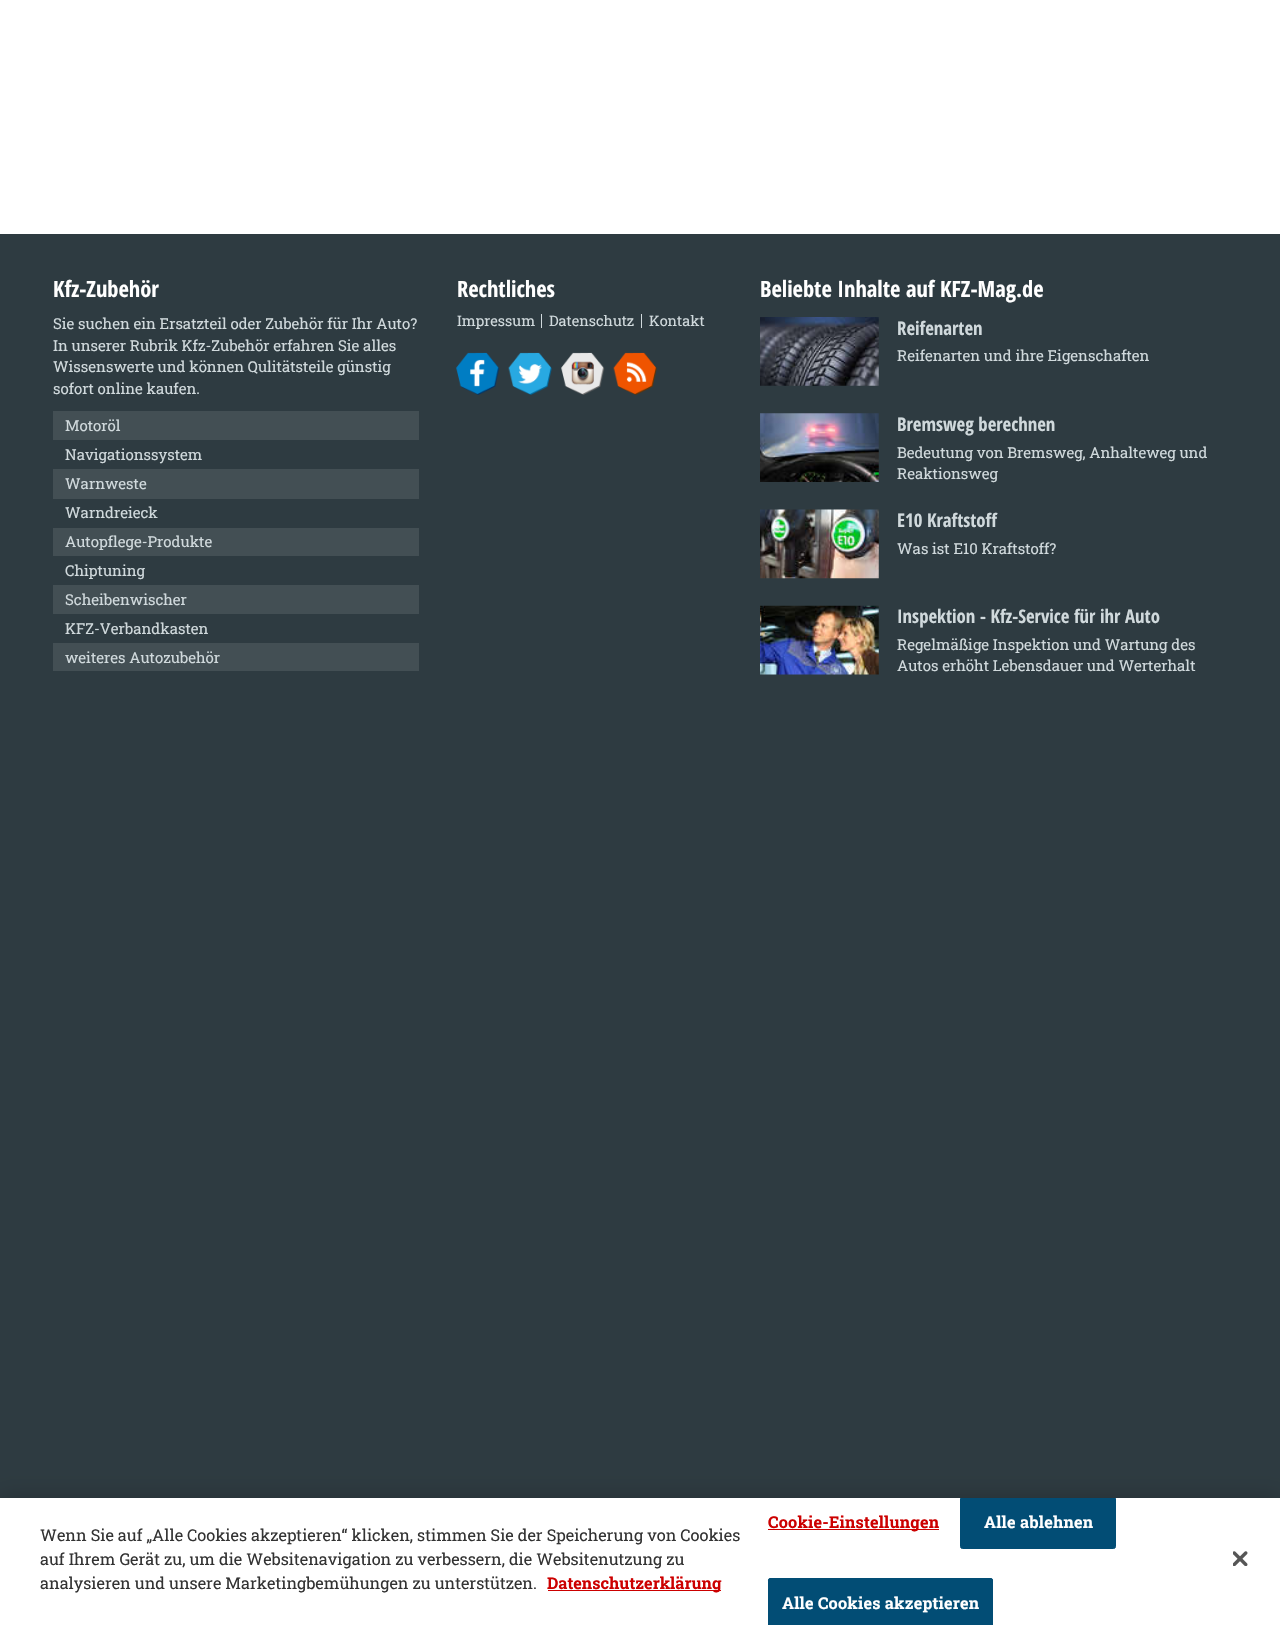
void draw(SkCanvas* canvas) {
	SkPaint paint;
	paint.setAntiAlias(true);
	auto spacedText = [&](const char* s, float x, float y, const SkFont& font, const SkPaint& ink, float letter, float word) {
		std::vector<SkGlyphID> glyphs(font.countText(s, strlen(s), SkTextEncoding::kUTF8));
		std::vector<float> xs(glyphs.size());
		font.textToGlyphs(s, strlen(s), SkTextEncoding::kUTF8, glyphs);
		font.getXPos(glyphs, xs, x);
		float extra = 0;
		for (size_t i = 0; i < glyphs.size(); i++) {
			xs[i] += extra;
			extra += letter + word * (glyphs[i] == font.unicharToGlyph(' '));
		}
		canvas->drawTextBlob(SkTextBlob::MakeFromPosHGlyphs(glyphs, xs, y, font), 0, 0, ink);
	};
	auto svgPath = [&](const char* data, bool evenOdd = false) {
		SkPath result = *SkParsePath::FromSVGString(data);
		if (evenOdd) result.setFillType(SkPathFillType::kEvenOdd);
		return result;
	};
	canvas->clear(0xffffffff);
	paint.setColor(0xff2e3b41);
	canvas->drawRect(SkRect::MakeXYWH(0, 234, 1280, 1264), paint);
	SkFont f1(fontMgr->matchFamilyStyle("Open Sans Condensed", SkFontStyle::Bold()), 22.5);
	f1.setSubpixel(true);
	paint.setColor(0xffffffff);
	canvas->drawString("Kfz-Zubehör", 53, 297, f1, paint);
	SkFont f2(fontMgr->matchFamilyStyle("Roboto Slab", SkFontStyle::Normal()), 15);
	f2.setSubpixel(true);
	paint.setColor(0xffd0d9dc);
	canvas->drawString("Sie suchen ein Ersatzteil oder Zubehör für Ihr Auto?", 53, 329, f2, paint);
	canvas->drawString("In unserer Rubrik Kfz-Zubehör erfahren Sie alles", 53, 351, f2, paint);
	canvas->drawString("Wissenswerte und können Qulitätsteile günstig", 53, 372, f2, paint);
	canvas->drawString("sofort online kaufen.", 53, 394, f2, paint);
	paint.setColor(0xff434f54);
	canvas->drawRect(SkRect::MakeXYWH(53, 411, 366, 29), paint);
	paint.setColor(0xffd0d9dc);
	canvas->drawString("Motoröl", 65, 431, f2, paint);
	canvas->drawString("Navigationssystem", 65, 460, f2, paint);
	paint.setColor(0xff434f54);
	canvas->drawRect(SkRect::MakeXYWH(53, 469, 366, 30), paint);
	paint.setColor(0xffd0d9dc);
	canvas->drawString("Warnweste", 65, 489, f2, paint);
	canvas->drawString("Warndreieck", 65, 518, f2, paint);
	paint.setColor(0xff434f54);
	canvas->drawRect(SkRect::MakeXYWH(53, 528, 366, 28), paint);
	paint.setColor(0xffd0d9dc);
	canvas->drawString("Autopflege-Produkte", 65, 547, f2, paint);
	canvas->drawString("Chiptuning", 65, 576, f2, paint);
	paint.setColor(0xff434f54);
	canvas->drawRect(SkRect::MakeXYWH(53, 585, 366, 29), paint);
	paint.setColor(0xffd0d9dc);
	canvas->drawString("Scheibenwischer", 65, 605, f2, paint);
	canvas->drawString("KFZ-Verbandkasten", 65, 634, f2, paint);
	paint.setColor(0xff434f54);
	canvas->drawRect(SkRect::MakeXYWH(53, 643, 366, 28), paint);
	paint.setColor(0xffd0d9dc);
	canvas->drawString("weiteres Autozubehör", 65, 663, f2, paint);
	paint.setColor(0xffffffff);
	canvas->drawString("Rechtliches", 457, 297, f1, paint);
	paint.setColor(0xffd0d9dc);
	canvas->drawRect(SkRect::MakeXYWH(541, 314, 1, 14), paint);
	SkFont f3(fontMgr->matchFamilyStyle("Roboto Slab", SkFontStyle::Normal()), 14.5);
	f3.setSubpixel(true);
	canvas->drawString("Impressum", 457, 326, f3, paint);
	canvas->drawRect(SkRect::MakeXYWH(641, 314, 1, 14), paint);
	canvas->drawString("Datenschutz", 549, 326, f3, paint);
	canvas->drawString("Kontakt", 649, 326, f3, paint);
	canvas->drawImageRect(SkImages::DeferredFromEncodedData(SkData::MakeFromFileName("img1.png")), SkRect::MakeXYWH(456, 352, 44, 43), SkSamplingOptions());
	canvas->drawImageRect(SkImages::DeferredFromEncodedData(SkData::MakeFromFileName("img2.png")), SkRect::MakeXYWH(508, 352, 44, 43), SkSamplingOptions());
	canvas->drawImageRect(SkImages::DeferredFromEncodedData(SkData::MakeFromFileName("img3.png")), SkRect::MakeXYWH(561, 352, 44, 43), SkSamplingOptions());
	canvas->drawImageRect(SkImages::DeferredFromEncodedData(SkData::MakeFromFileName("img4.png")), SkRect::MakeXYWH(613, 352, 44, 43), SkSamplingOptions());
	paint.setColor(0xffffffff);
	canvas->drawString("Beliebte Inhalte auf KFZ-Mag.de", 760, 297, f1, paint);
	canvas->drawImageRect(SkImages::DeferredFromEncodedData(SkData::MakeFromFileName("img5.png")), SkRect::MakeXYWH(760, 317, 119, 69), SkSamplingOptions());
	SkFont f4(fontMgr->matchFamilyStyle("Open Sans Condensed", SkFontStyle::Bold()), 18.75);
	f4.setSubpixel(true);
	paint.setColor(0xffd0d9dc);
	canvas->drawString("Reifenarten", 897, 335, f4, paint);
	canvas->drawString("Reifenarten und ihre Eigenschaften", 897, 361, f2, paint);
	canvas->drawImageRect(SkImages::DeferredFromEncodedData(SkData::MakeFromFileName("img6.png")), SkRect::MakeXYWH(760, 413, 119, 69), SkSamplingOptions());
	canvas->drawString("Bremsweg berechnen", 897, 431, f4, paint);
	canvas->drawString("Bedeutung von Bremsweg, Anhalteweg und", 897, 458, f2, paint);
	canvas->drawString("Reaktionsweg", 897, 479, f2, paint);
	canvas->drawImageRect(SkImages::DeferredFromEncodedData(SkData::MakeFromFileName("img7.png")), SkRect::MakeXYWH(760, 509, 119, 70), SkSamplingOptions());
	canvas->drawString("E10 Kraftstoff", 897, 527, f4, paint);
	canvas->drawString("Was ist E10 Kraftstoff?", 897, 554, f2, paint);
	canvas->drawImageRect(SkImages::DeferredFromEncodedData(SkData::MakeFromFileName("img8.png")), SkRect::MakeXYWH(760, 605, 119, 70), SkSamplingOptions());
	canvas->drawString("Inspektion - Kfz-Service für ihr Auto", 897, 623, f4, paint);
	canvas->drawString("Regelmäßige Inspektion und Wartung des", 897, 650, f2, paint);
	canvas->drawString("Autos erhöht Lebensdauer und Werterhalt", 897, 671, f2, paint);
	paint.setColor(0x33000000);
	paint.setMaskFilter(SkMaskFilter::MakeBlur(kNormal_SkBlurStyle, 11));
	canvas->drawRect(SkRect::MakeXYWH(0, 1498, 1280, 127), paint);
	paint.setMaskFilter(nullptr);
	paint.setColor(0xffffffff);
	canvas->drawRect(SkRect::MakeXYWH(0, 1498, 1280, 127), paint);
	SkFont f5(fontMgr->matchFamilyStyle("Roboto Slab", SkFontStyle::Normal()), 16.25);
	f5.setSubpixel(true);
	paint.setColor(0xff333333);
	canvas->drawString("Wenn Sie auf „Alle Cookies akzeptieren“ klicken, stimmen Sie der Speicherung von Cookies", 40, 1541, f5, paint);
	canvas->drawString("auf Ihrem Gerät zu, um die Websitenavigation zu verbessern, die Websitenutzung zu", 40, 1565, f5, paint);
	canvas->drawString("analysieren und unsere Marketingbemühungen zu unterstützen.", 40, 1589, f5, paint);
	paint.setColor(0xffcc0000);
	canvas->drawRect(SkRect::MakeXYWH(548, 1590, 173, 1), paint);
	SkFont f6(fontMgr->matchFamilyStyle("Roboto Slab", SkFontStyle::Bold()), 16.25);
	f6.setSubpixel(true);
	canvas->drawString("Datenschutzerklärung", 547, 1589, f6, paint);
	canvas->drawRect(SkRect::MakeXYWH(768, 1529, 171, 1), paint);
	spacedText("Cookie-Einstellungen", 768, 1528, f6, paint, 0.2, 0);
	canvas->save();
	canvas->clipRect(SkRect::MakeXYWH(0, 1498, 1280, 127));
	paint.setColor(0xff024d75);
	canvas->drawRoundRect(SkRect::MakeXYWH(960.5, 1496.5, 155, 52), 2, 2, paint);
	paint.setStroke(true);
	paint.setStrokeWidth(1);
	canvas->drawRoundRect(SkRect::MakeXYWH(960.5, 1496.5, 155, 52), 2, 2, paint);
	canvas->restore();
	paint.setStroke(false);
	paint.setColor(0xffffffff);
	spacedText("Alle ablehnen", 984, 1528, f6, paint, 0.2, 0);
	paint.setColor(0xff024d75);
	canvas->drawPath(svgPath("M770.5 1578H990.5C992 1578 993 1579 993 1580.5V1625H768V1580.5C768 1579 769 1578 770.5 1578Z"), paint);
	paint.setStroke(true);
	canvas->drawRoundRect(SkRect::MakeXYWH(768.5, 1578.5, 224, 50), 2, 2, paint);
	paint.setStroke(false);
	paint.setColor(0xffffffff);
	spacedText("Alle Cookies akzeptieren", 782, 1609, f6, paint, 0.2, 0);
	canvas->drawImageRect(SkImages::DeferredFromEncodedData(SkData::MakeFromFileName("img9.png")), SkRect::MakeXYWH(1233, 1551, 15, 15), SkSamplingOptions());
}
